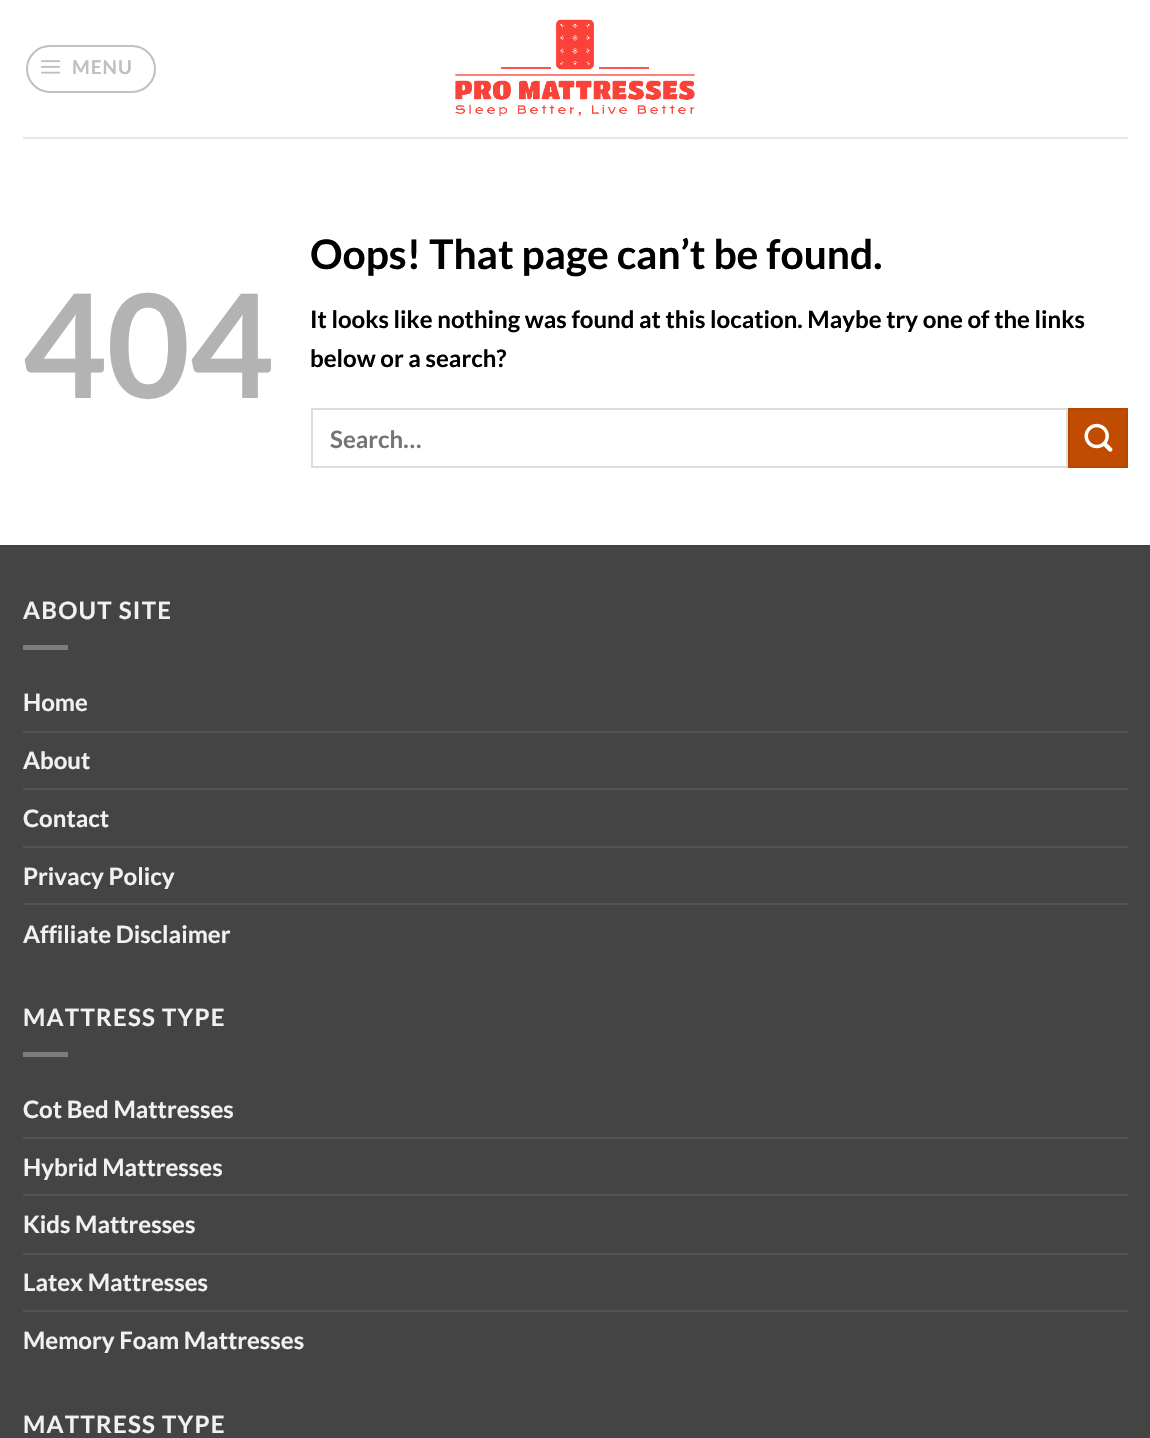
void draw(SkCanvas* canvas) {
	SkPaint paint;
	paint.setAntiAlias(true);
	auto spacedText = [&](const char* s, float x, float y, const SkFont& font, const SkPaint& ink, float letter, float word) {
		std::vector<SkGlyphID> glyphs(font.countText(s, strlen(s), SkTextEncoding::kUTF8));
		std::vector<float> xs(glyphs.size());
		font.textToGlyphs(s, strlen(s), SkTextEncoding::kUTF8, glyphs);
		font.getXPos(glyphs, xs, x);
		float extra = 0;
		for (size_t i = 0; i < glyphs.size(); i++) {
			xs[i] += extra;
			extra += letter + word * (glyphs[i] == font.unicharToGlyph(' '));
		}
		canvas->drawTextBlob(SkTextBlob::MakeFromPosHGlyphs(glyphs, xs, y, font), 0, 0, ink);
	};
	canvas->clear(0xffffffff);
	paint.setStroke(true);
	paint.setStrokeWidth(2);
	paint.setColor(0xffc0c0c0);
	canvas->drawRoundRect(SkRect::MakeXYWH(27, 46, 128, 46), 23, 23, paint);
	canvas->drawImageRect(SkImages::DeferredFromEncodedData(SkData::MakeFromFileName("img1.png")), SkRect::MakeXYWH(41, 60, 20, 14), SkSamplingOptions());
	SkFont f1(fontMgr->matchFamilyStyle("Lato", SkFontStyle::Bold()), 19);
	f1.setSubpixel(true);
	paint.setStroke(false);
	spacedText("MENU", 72, 74, f1, paint, 1, 0);
	canvas->drawImageRect(SkImages::DeferredFromEncodedData(SkData::MakeFromFileName("img2.png")), SkRect::MakeXYWH(455, 19, 240, 98), SkSamplingOptions());
	paint.setColor(0xffe6e6e6);
	canvas->drawRect(SkRect::MakeXYWH(23, 137, 1105, 2), paint);
	SkFont f2(fontMgr->matchFamilyStyle("Lato", SkFontStyle::Bold()), 144);
	f2.setSubpixel(true);
	paint.setColor(0xffb3b3b3);
	canvas->drawString("404", 23, 398, f2, paint);
	SkFont f3(fontMgr->matchFamilyStyle("Lato", SkFontStyle::Bold()), 40.75);
	f3.setSubpixel(true);
	paint.setColor(0xff000000);
	canvas->drawString("Oops! That page can’t be found.", 310, 269, f3, paint);
	SkFont f4(fontMgr->matchFamilyStyle("Lato", SkFontStyle::Bold()), 24);
	f4.setSubpixel(true);
	canvas->drawString("It looks like nothing was found at this location. Maybe try one of the links", 310, 328, f4, paint);
	canvas->drawString("below or a search?", 310, 367, f4, paint);
	paint.setStroke(true);
	paint.setColor(0xffdddddd);
	canvas->drawRect(SkRect::MakeXYWH(312, 409, 755, 58), paint);
	paint.setStroke(false);
	paint.setColor(0xff757575);
	canvas->drawString("Search…", 330, 448, f4, paint);
	paint.setColor(0xffbf4c00);
	canvas->drawRect(SkRect::MakeXYWH(1069, 409, 58, 58), paint);
	paint.setStroke(true);
	paint.setColor(0xffb54800);
	canvas->drawRect(SkRect::MakeXYWH(1069, 409, 58, 58), paint);
	canvas->drawImageRect(SkImages::DeferredFromEncodedData(SkData::MakeFromFileName("img3.png")), SkRect::MakeXYWH(1084, 423, 29, 29), SkSamplingOptions());
	paint.setStroke(false);
	paint.setColor(0xff444444);
	canvas->drawRect(SkRect::MakeXYWH(0, 547, 1150, 891), paint);
	paint.setColor(0xff414141);
	canvas->drawRect(SkRect::MakeXYWH(0, 545, 1150, 2), paint);
	paint.setColor(0xfff1f1f1);
	spacedText("ABOUT SITE", 23, 619, f4, paint, 1.25, 0);
	paint.setColor(0xff7c7c7c);
	canvas->drawRect(SkRect::MakeXYWH(23, 645, 45, 5), paint);
	paint.setColor(0xfff1f1f1);
	canvas->drawString("Home", 23, 711, f4, paint);
	paint.setColor(0xff535353);
	canvas->drawRect(SkRect::MakeXYWH(23, 731, 1105, 2), paint);
	paint.setColor(0xfff1f1f1);
	canvas->drawString("About", 23, 769, f4, paint);
	paint.setColor(0xff535353);
	canvas->drawRect(SkRect::MakeXYWH(23, 788, 1105, 2), paint);
	paint.setColor(0xfff1f1f1);
	canvas->drawString("Contact", 23, 827, f4, paint);
	paint.setColor(0xff535353);
	canvas->drawRect(SkRect::MakeXYWH(23, 846, 1105, 2), paint);
	paint.setColor(0xfff1f1f1);
	canvas->drawString("Privacy Policy", 23, 885, f4, paint);
	paint.setColor(0xff535353);
	canvas->drawRect(SkRect::MakeXYWH(23, 903, 1105, 2), paint);
	paint.setColor(0xfff1f1f1);
	canvas->drawString("Affiliate Disclaimer", 23, 943, f4, paint);
	spacedText("MATTRESS TYPE", 23, 1026, f4, paint, 1.25, 0);
	paint.setColor(0xff7c7c7c);
	canvas->drawRect(SkRect::MakeXYWH(23, 1052, 45, 5), paint);
	paint.setColor(0xfff1f1f1);
	canvas->drawString("Cot Bed Mattresses", 23, 1118, f4, paint);
	paint.setColor(0xff535353);
	canvas->drawRect(SkRect::MakeXYWH(23, 1137, 1105, 2), paint);
	paint.setColor(0xfff1f1f1);
	canvas->drawString("Hybrid Mattresses", 23, 1176, f4, paint);
	paint.setColor(0xff535353);
	canvas->drawRect(SkRect::MakeXYWH(23, 1194, 1105, 2), paint);
	paint.setColor(0xfff1f1f1);
	canvas->drawString("Kids Mattresses", 23, 1233, f4, paint);
	paint.setColor(0xff535353);
	canvas->drawRect(SkRect::MakeXYWH(23, 1253, 1105, 2), paint);
	paint.setColor(0xfff1f1f1);
	canvas->drawString("Latex Mattresses", 23, 1291, f4, paint);
	paint.setColor(0xff535353);
	canvas->drawRect(SkRect::MakeXYWH(23, 1310, 1105, 2), paint);
	paint.setColor(0xfff1f1f1);
	canvas->drawString("Memory Foam Mattresses", 23, 1349, f4, paint);
	spacedText("MATTRESS TYPE", 23, 1433, f4, paint, 1.25, 0);
}
